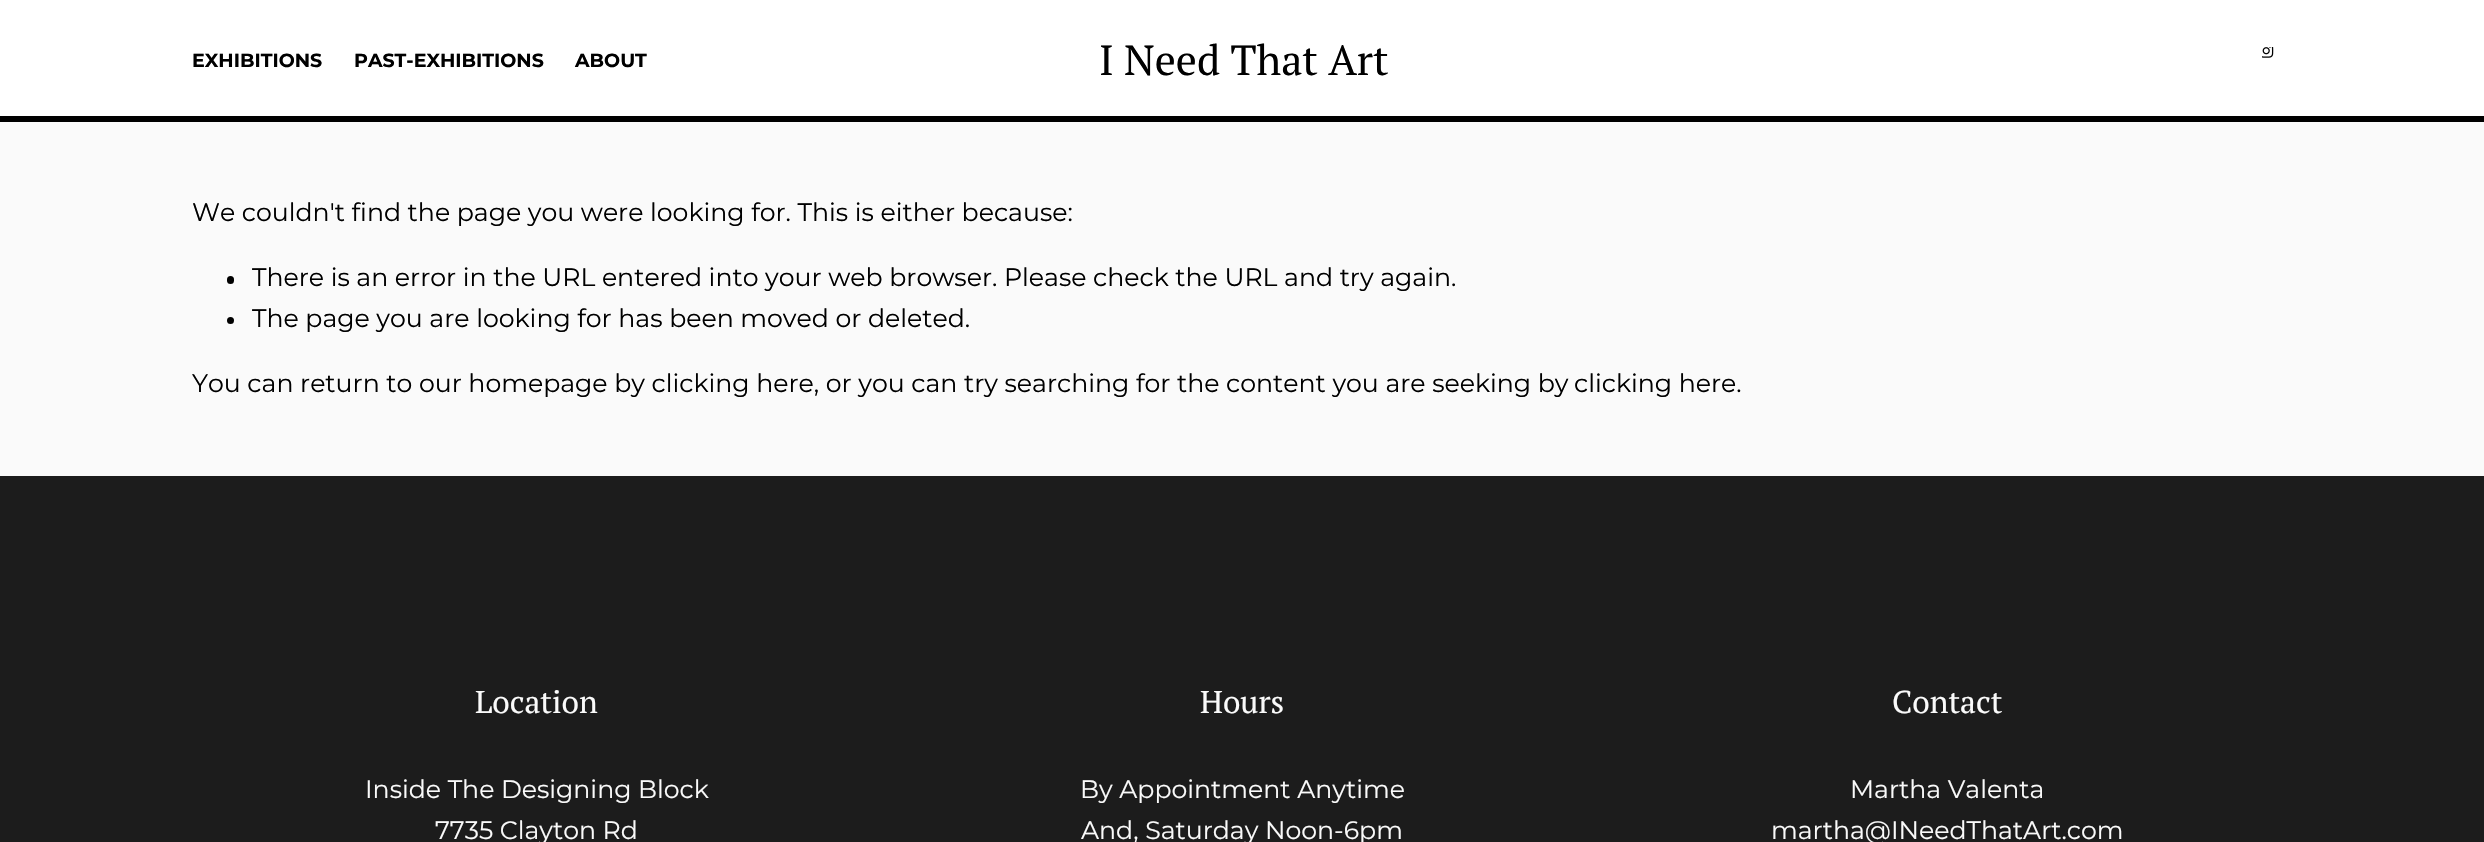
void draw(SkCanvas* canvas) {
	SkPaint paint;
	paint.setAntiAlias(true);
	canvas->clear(0xfffafafa);
	paint.setColor(0xffffffff);
	canvas->drawRect(SkRect::MakeXYWH(0, 0, 2484, 116), paint);
	SkFont f1(fontMgr->matchFamilyStyle("Montserrat", SkFontStyle::Bold()), 19);
	f1.setSubpixel(true);
	paint.setColor(0xff000000);
	canvas->drawString("EXHIBITIONS", 192, 67, f1, paint);
	canvas->drawString("PAST-EXHIBITIONS", 354, 67, f1, paint);
	canvas->drawString("ABOUT", 575, 67, f1, paint);
	SkFont f2(fontMgr->matchFamilyStyle("PT Serif", SkFontStyle::Normal()), 42);
	f2.setSubpixel(true);
	canvas->drawString("I Need That Art", 1099, 75, f2, paint);
	canvas->drawImageRect(SkImages::DeferredFromEncodedData(SkData::MakeFromFileName("img1.png")), SkRect::MakeXYWH(2262, 47, 12, 11), SkSamplingOptions());
	canvas->drawRect(SkRect::MakeXYWH(0, 116, 2484, 6), paint);
	SkFont f3(fontMgr->matchFamilyStyle("Montserrat", SkFontStyle::Normal()), 25.2);
	f3.setSubpixel(true);
	canvas->drawString("We couldn't find the page you were looking for. This is either because:", 192, 221, f3, paint);
	canvas->drawRoundRect(SkRect::MakeXYWH(227, 276, 7, 8), 3.5, 3.5, paint);
	canvas->drawString("There is an error in the URL entered into your web browser. Please check the URL and try again.", 252, 286, f3, paint);
	canvas->drawCircle(230.5, 320.5, 3.5, paint);
	canvas->drawString("The page you are looking for has been moved or deleted.", 252, 327, f3, paint);
	canvas->drawString("You can return to our homepage by clicking here, or you can try searching for the content you are seeking by", 192, 392, f3, paint);
	canvas->drawString("clicking here.", 1574, 392, f3, paint);
	paint.setColor(0xff1c1c1c);
	canvas->drawRect(SkRect::MakeXYWH(0, 476, 2484, 366), paint);
	SkFont f4(fontMgr->matchFamilyStyle("PT Serif", SkFontStyle::Normal()), 31.5);
	f4.setSubpixel(true);
	paint.setColor(0xfffafafa);
	canvas->drawString("Location", 475, 713, f4, paint);
	canvas->drawString("Inside The Designing Block", 365, 798, f3, paint);
	canvas->drawString("7735 Clayton Rd", 435, 839, f3, paint);
	canvas->drawString("Hours", 1200, 713, f4, paint);
	canvas->drawString("By Appointment Anytime", 1080, 798, f3, paint);
	canvas->drawString("And, Saturday Noon-6pm", 1081, 839, f3, paint);
	canvas->drawString("Contact", 1892, 713, f4, paint);
	canvas->drawString("Martha Valenta", 1850, 798, f3, paint);
	canvas->drawString("martha@INeedThatArt.com", 1771, 839, f3, paint);
}
